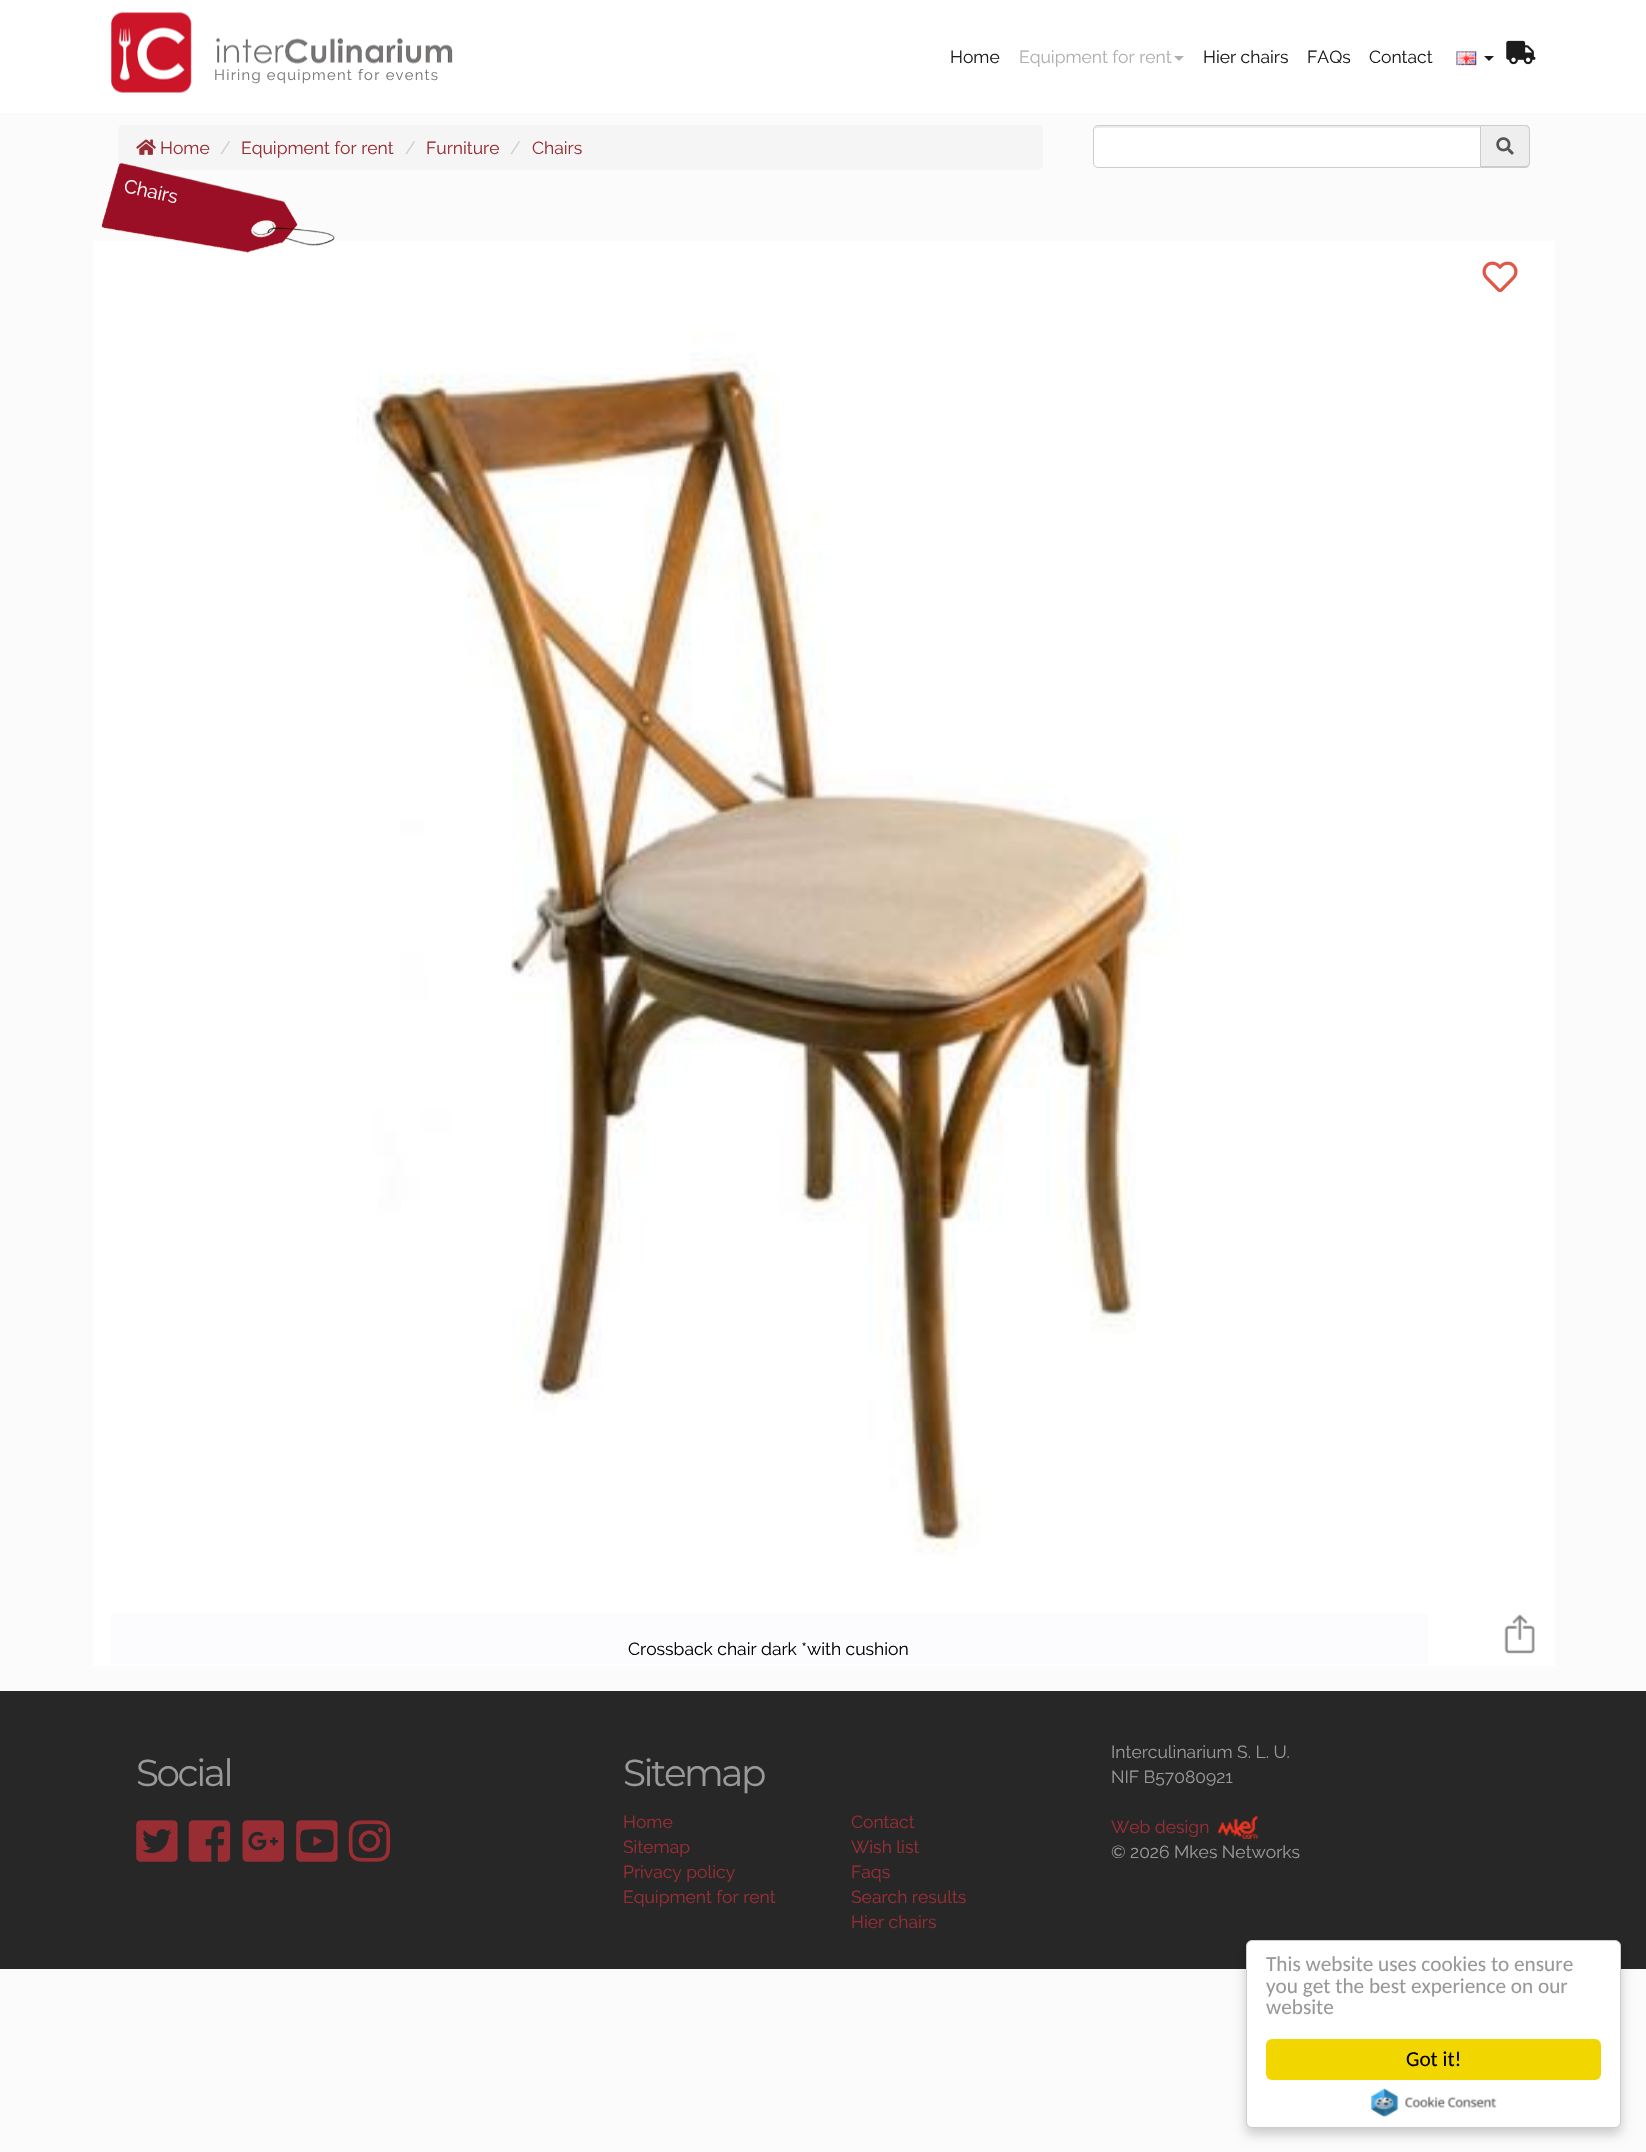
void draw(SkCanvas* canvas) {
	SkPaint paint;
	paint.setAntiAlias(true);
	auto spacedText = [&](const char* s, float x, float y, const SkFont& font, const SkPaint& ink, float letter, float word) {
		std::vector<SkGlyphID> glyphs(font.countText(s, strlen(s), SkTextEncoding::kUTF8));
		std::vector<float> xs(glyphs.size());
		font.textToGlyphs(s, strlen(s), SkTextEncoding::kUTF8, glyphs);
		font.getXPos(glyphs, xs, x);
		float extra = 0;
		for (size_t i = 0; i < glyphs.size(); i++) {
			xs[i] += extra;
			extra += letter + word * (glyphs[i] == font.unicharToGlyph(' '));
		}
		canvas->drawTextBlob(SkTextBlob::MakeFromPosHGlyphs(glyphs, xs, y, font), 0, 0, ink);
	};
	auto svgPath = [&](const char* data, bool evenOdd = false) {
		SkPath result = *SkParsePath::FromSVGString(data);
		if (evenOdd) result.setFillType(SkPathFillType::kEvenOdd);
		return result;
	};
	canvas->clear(0xffffffff);
	{
		const SkColor colors[] = {0xffffffff, 0xfffbfbfb};
		const float stops[] = {0, 0.06};
		const SkPoint ends[] = {{823, 0}, {823, 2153}};
		paint.setShader(SkGradientShader::MakeLinear(ends, colors, stops, 2, SkTileMode::kClamp));
		paint.setAlpha(255);
	}
	canvas->drawRect(SkRect::MakeXYWH(0, 113, 1646, 2039), paint);
	SkFont f1(fontMgr->matchFamilyStyle("Raleway", SkFontStyle::Normal()), 17.5);
	f1.setSubpixel(true);
	paint.setShader(nullptr);
	paint.setColor(0xff1c1c1c);
	canvas->drawString("Home", 950, 63, f1, paint);
	paint.setColor(0xffafafaf);
	canvas->drawString("Equipment for rent", 1019, 63, f1, paint);
	canvas->drawPath(svgPath("M1174 56H1184L1179 61Z"), paint);
	paint.setColor(0xff1c1c1c);
	canvas->drawString("Hier chairs", 1203, 63, f1, paint);
	canvas->drawString("FAQs", 1307, 63, f1, paint);
	canvas->drawString("Contact", 1369, 63, f1, paint);
	canvas->drawImageRect(SkImages::DeferredFromEncodedData(SkData::MakeFromFileName("img1.png")), SkRect::MakeXYWH(1456, 51, 21, 15), SkSamplingOptions());
	canvas->drawPath(svgPath("M1484 56H1494L1489 61Z"), paint);
	canvas->drawImageRect(SkImages::DeferredFromEncodedData(SkData::MakeFromFileName("img2.png")), SkRect::MakeXYWH(1506, 40, 30, 25), SkSamplingOptions());
	canvas->drawImageRect(SkImages::DeferredFromEncodedData(SkData::MakeFromFileName("img3.png")), SkRect::MakeXYWH(111, 12, 81, 81), SkSamplingOptions());
	canvas->drawImageRect(SkImages::DeferredFromEncodedData(SkData::MakeFromFileName("img4.png")), SkRect::MakeXYWH(215, 37, 238, 27), SkSamplingOptions());
	SkFont f2(fontMgr->matchFamilyStyle("Raleway", SkFontStyle::Normal()), 14.8);
	f2.setSubpixel(true);
	paint.setColor(0xff777777);
	spacedText("Hiring equipment for events", 214, 80, f2, paint, 1.25, 0);
	paint.setColor(0xfff5f5f5);
	canvas->drawRoundRect(SkRect::MakeXYWH(118, 125, 925, 45), 5, 5, paint);
	canvas->drawImageRect(SkImages::DeferredFromEncodedData(SkData::MakeFromFileName("img5.png")), SkRect::MakeXYWH(136, 139, 20, 16), SkSamplingOptions());
	paint.setColor(0xff992d34);
	canvas->drawString("Home", 160, 154, f1, paint);
	paint.setColor(0xffcccccc);
	canvas->drawString("/", 220, 154, f1, paint);
	paint.setColor(0xff992d34);
	canvas->drawString("Equipment for rent", 241, 154, f1, paint);
	paint.setColor(0xffcccccc);
	canvas->drawString("/", 405, 154, f1, paint);
	paint.setColor(0xff992d34);
	canvas->drawString("Furniture", 426, 154, f1, paint);
	paint.setColor(0xffcccccc);
	canvas->drawString("/", 510, 154, f1, paint);
	paint.setColor(0xff992d34);
	canvas->drawString("Chairs", 532, 154, f1, paint);
	paint.setColor(0xffffffff);
	canvas->drawPath(svgPath("M1098 125H1481V168H1098C1095 168 1093 166 1093 163V130C1093 127 1095 125 1098 125Z"), paint);
	paint.setColor(0xffececec);
	canvas->drawPath(svgPath("M1098 128H1480V126H1098C1095 126 1094 128 1094 131C1094 129 1095 128 1098 128Z"), paint);
	paint.setStroke(true);
	paint.setStrokeWidth(1);
	paint.setColor(0xffcccccc);
	canvas->drawPath(svgPath("M1098 125.5H1480.5V167.5H1098C1095.5 167.5 1093.5 165.5 1093.5 163V130C1093.5 127.5 1095.5 125.5 1098 125.5Z"), paint);
	paint.setStroke(false);
	paint.setColor(0xffeeeeee);
	canvas->drawPath(svgPath("M1481 125H1525C1528 125 1530 127 1530 130V163C1530 166 1528 168 1525 168H1481Z"), paint);
	paint.setColor(0xffcccccc);
	canvas->drawPath(svgPath("M1481 125H1525C1528 125 1530 127 1530 130V162C1530 165 1528 168 1525 168H1481ZM1481 126H1525C1527 126 1529 128 1529 130V162C1529 165 1527 166 1525 166H1481Z", true), paint);
	canvas->drawImageRect(SkImages::DeferredFromEncodedData(SkData::MakeFromFileName("img6.png")), SkRect::MakeXYWH(1496, 137, 18, 18), SkSamplingOptions());
	paint.setColor(0xffffffff);
	canvas->drawRect(SkRect::MakeXYWH(93, 241, 1462, 1425), paint);
	canvas->drawImageRect(SkImages::DeferredFromEncodedData(SkData::MakeFromFileName("img7.png")), SkRect::MakeXYWH(101, 162, 234, 91), SkSamplingOptions());
	SkFont f3(fontMgr->matchFamilyStyle("Raleway", SkFontStyle::Normal()), 19);
	f3.setSubpixel(true);
	canvas->save();
	canvas->rotate(12, 123, 192);
	canvas->drawString("Chairs", 123, 192, f3, paint);
	canvas->restore();
	canvas->drawImageRect(SkImages::DeferredFromEncodedData(SkData::MakeFromFileName("img8.png")), SkRect::MakeXYWH(1482, 261, 36, 32), SkSamplingOptions());
	canvas->drawImageRect(SkImages::DeferredFromEncodedData(SkData::MakeFromFileName("img9.png")), SkRect::MakeXYWH(356, 331, 824, 1225), SkSamplingOptions());
	paint.setColor(0xfffcfcff);
	canvas->drawRect(SkRect::MakeXYWH(111, 1614, 1317, 50), paint);
	paint.setColor(0xff000000);
	canvas->drawString("Crossback chair dark *with cushion", 628, 1655, f1, paint);
	canvas->drawImageRect(SkImages::DeferredFromEncodedData(SkData::MakeFromFileName("img10.png")), SkRect::MakeXYWH(1504, 1614, 31, 40), SkSamplingOptions());
	paint.setColor(0xff272727);
	canvas->drawRect(SkRect::MakeXYWH(0, 1691, 1646, 278), paint);
	SkFont f4(fontMgr->matchFamilyStyle("Montserrat", SkFontStyle::Normal()), 37.5);
	f4.setSubpixel(true);
	paint.setColor(0xff999999);
	spacedText("Social", 136, 1786, f4, paint, -2.5, 0);
	canvas->drawImageRect(SkImages::DeferredFromEncodedData(SkData::MakeFromFileName("img11.png")), SkRect::MakeXYWH(136, 1820, 42, 42), SkSamplingOptions());
	canvas->drawImageRect(SkImages::DeferredFromEncodedData(SkData::MakeFromFileName("img12.png")), SkRect::MakeXYWH(188, 1820, 43, 42), SkSamplingOptions());
	canvas->drawImageRect(SkImages::DeferredFromEncodedData(SkData::MakeFromFileName("img13.png")), SkRect::MakeXYWH(242, 1820, 42, 42), SkSamplingOptions());
	canvas->drawImageRect(SkImages::DeferredFromEncodedData(SkData::MakeFromFileName("img14.png")), SkRect::MakeXYWH(296, 1820, 42, 42), SkSamplingOptions());
	canvas->drawImageRect(SkImages::DeferredFromEncodedData(SkData::MakeFromFileName("img15.png")), SkRect::MakeXYWH(348, 1820, 43, 42), SkSamplingOptions());
	spacedText("Sitemap", 623, 1786, f4, paint, -2.5, 0);
	paint.setColor(0xff992d34);
	canvas->drawString("Home", 623, 1828, f1, paint);
	canvas->drawString("Sitemap", 623, 1853, f1, paint);
	canvas->drawString("Privacy policy", 623, 1878, f1, paint);
	canvas->drawString("Equipment for rent", 623, 1903, f1, paint);
	canvas->drawString("Contact", 851, 1828, f1, paint);
	canvas->drawString("Wish list", 851, 1853, f1, paint);
	canvas->drawString("Faqs", 851, 1878, f1, paint);
	canvas->drawString("Search results", 851, 1903, f1, paint);
	canvas->drawString("Hier chairs", 851, 1928, f1, paint);
	paint.setColor(0xff999999);
	canvas->drawString("Interculinarium S. L. U.", 1111, 1758, f1, paint);
	canvas->drawString("NIF B57080921", 1111, 1783, f1, paint);
	paint.setColor(0xff992d34);
	canvas->drawString("Web design", 1111, 1833, f1, paint);
	canvas->drawImageRect(SkImages::DeferredFromEncodedData(SkData::MakeFromFileName("img16.png")), SkRect::MakeXYWH(1217, 1816, 41, 23), SkSamplingOptions());
	paint.setColor(0xff999999);
	canvas->drawString("© 2026 Mkes Networks", 1111, 1858, f1, paint);
	paint.setColor(0x33000000);
	paint.setMaskFilter(SkMaskFilter::MakeBlur(kNormal_SkBlurStyle, 6));
	canvas->drawRoundRect(SkRect::MakeXYWH(1246, 1946, 375, 188), 6, 6, paint);
	paint.setMaskFilter(nullptr);
	paint.setColor(0xffffffff);
	canvas->drawRoundRect(SkRect::MakeXYWH(1246.5, 1940.5, 374, 187), 5.5, 5.5, paint);
	paint.setStroke(true);
	paint.setColor(0xffcccccc);
	canvas->drawRoundRect(SkRect::MakeXYWH(1246.5, 1940.5, 374, 187), 5.5, 5.5, paint);
	SkFont f5(fontMgr->matchFamilyStyle("Carlito", SkFontStyle::Normal()), 21.25);
	f5.setSubpixel(true);
	paint.setStroke(false);
	paint.setColor(0xff999999);
	canvas->drawString("This website uses cookies to ensure", 1266, 1971, f5, paint);
	canvas->drawString("you get the best experience on our", 1266, 1993, f5, paint);
	canvas->drawString("website", 1266, 2014, f5, paint);
	paint.setColor(0xfff1d600);
	canvas->drawRoundRect(SkRect::MakeXYWH(1266, 2039, 335, 41), 6, 6, paint);
	paint.setColor(0xff000000);
	canvas->drawString("Got it!", 1406, 2066, f5, paint);
	canvas->drawImageRect(SkImages::DeferredFromEncodedData(SkData::MakeFromFileName("img17.png")), SkRect::MakeXYWH(1371, 2088, 126, 29), SkSamplingOptions());
}
